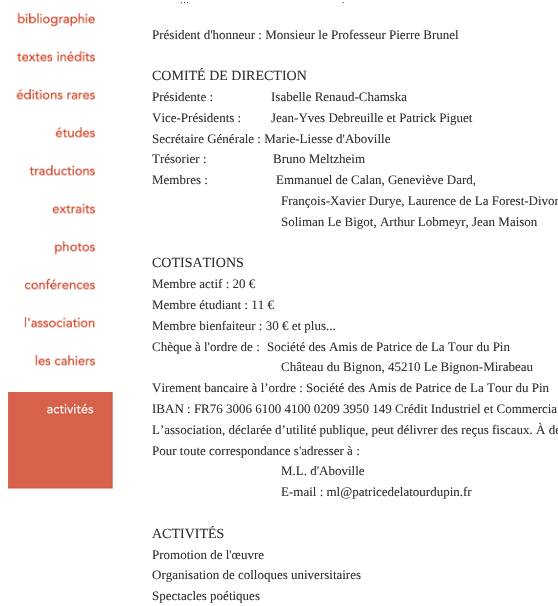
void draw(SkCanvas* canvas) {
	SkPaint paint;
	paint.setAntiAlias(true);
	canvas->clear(0xffffffff);
	canvas->drawImageRect(SkImages::DeferredFromEncodedData(SkData::MakeFromFileName("img1.png")), SkRect::MakeXYWH(17, 13, 78, 14), SkSamplingOptions());
	canvas->drawImageRect(SkImages::DeferredFromEncodedData(SkData::MakeFromFileName("img2.png")), SkRect::MakeXYWH(16, 51, 79, 11), SkSamplingOptions());
	canvas->drawImageRect(SkImages::DeferredFromEncodedData(SkData::MakeFromFileName("img3.png")), SkRect::MakeXYWH(16, 89, 79, 11), SkSamplingOptions());
	canvas->drawImageRect(SkImages::DeferredFromEncodedData(SkData::MakeFromFileName("img4.png")), SkRect::MakeXYWH(55, 127, 40, 11), SkSamplingOptions());
	canvas->drawImageRect(SkImages::DeferredFromEncodedData(SkData::MakeFromFileName("img5.png")), SkRect::MakeXYWH(29, 165, 66, 11), SkSamplingOptions());
	canvas->drawImageRect(SkImages::DeferredFromEncodedData(SkData::MakeFromFileName("img6.png")), SkRect::MakeXYWH(52, 203, 43, 11), SkSamplingOptions());
	canvas->drawImageRect(SkImages::DeferredFromEncodedData(SkData::MakeFromFileName("img7.png")), SkRect::MakeXYWH(54, 241, 41, 14), SkSamplingOptions());
	canvas->drawImageRect(SkImages::DeferredFromEncodedData(SkData::MakeFromFileName("img8.png")), SkRect::MakeXYWH(24, 279, 71, 11), SkSamplingOptions());
	canvas->drawImageRect(SkImages::DeferredFromEncodedData(SkData::MakeFromFileName("img9.png")), SkRect::MakeXYWH(24, 317, 71, 11), SkSamplingOptions());
	canvas->drawImageRect(SkImages::DeferredFromEncodedData(SkData::MakeFromFileName("img10.png")), SkRect::MakeXYWH(35, 355, 60, 11), SkSamplingOptions());
	canvas->drawImageRect(SkImages::DeferredFromEncodedData(SkData::MakeFromFileName("img11.png")), SkRect::MakeXYWH(8, 392, 105, 97), SkSamplingOptions());
	SkFont f1(fontMgr->matchFamilyStyle("Liberation Serif", SkFontStyle::Normal()), 9);
	f1.setSubpixel(true);
	paint.setColor(0xff333333);
	canvas->drawString("…", 180, 3, f1, paint);
	canvas->drawString(".", 342, 3, f1, paint);
	SkFont f2(fontMgr->matchFamilyStyle("Liberation Serif", SkFontStyle::Normal()), 13);
	f2.setSubpixel(true);
	canvas->drawString("Président d'honneur : Monsieur le Professeur Pierre Brunel", 152, 39, f2, paint);
	SkFont f3(fontMgr->matchFamilyStyle("Liberation Serif", SkFontStyle::Normal()), 14);
	f3.setSubpixel(true);
	canvas->drawString("COMITÉ DE DIRECTION", 152, 80, f3, paint);
	canvas->drawString("Présidente :", 152, 101, f2, paint);
	canvas->drawString("Isabelle Renaud-Chamska", 271, 101, f2, paint);
	canvas->drawString("Vice-Présidents :", 152, 122, f2, paint);
	canvas->drawString("Jean-Yves Debreuille et Patrick Piguet", 271, 122, f2, paint);
	canvas->drawString("Secrétaire Générale : Marie-Liesse d'Aboville", 152, 143, f2, paint);
	canvas->drawString("Trésorier :", 152, 163, f2, paint);
	canvas->drawString("Bruno Meltzheim", 273, 163, f2, paint);
	canvas->drawString("Membres :", 152, 184, f2, paint);
	canvas->drawString("Emmanuel de Calan, Geneviève Dard,", 276, 184, f2, paint);
	canvas->drawString("François-Xavier Durye, Laurence de La Forest-Divon", 281, 205, f2, paint);
	canvas->drawString("Soliman Le Bigot, Arthur Lobmeyr, Jean Maison", 281, 226, f2, paint);
	canvas->drawString("COTISATIONS", 152, 267, f3, paint);
	canvas->drawString("Membre actif : 20 €", 152, 288, f2, paint);
	canvas->drawString("Membre étudiant : 11 €", 152, 309, f2, paint);
	canvas->drawString("Membre bienfaiteur : 30 € et plus...", 152, 330, f2, paint);
	canvas->drawString("Chèque à l'ordre de :", 152, 351, f2, paint);
	canvas->drawString("Société des Amis de Patrice de La Tour du Pin", 267, 351, f2, paint);
	canvas->drawString("Château du Bignon, 45210 Le Bignon-Mirabeau", 281, 371, f2, paint);
	canvas->drawString("Virement bancaire à l’ordre : Société des Amis de Patrice de La Tour du Pin", 152, 392, f2, paint);
	canvas->drawString("IBAN : FR76 3006 6100 4100 0209 3950 149 Crédit Industriel et Commercia", 152, 413, f2, paint);
	canvas->drawString("L’association, déclarée d’utilité publique, peut délivrer des reçus fiscaux. À de", 152, 434, f2, paint);
	canvas->drawString("Pour toute correspondance s'adresser à :", 152, 455, f2, paint);
	canvas->drawString("M.L. d'Aboville", 281, 475, f2, paint);
	canvas->drawString("E-mail : ml@patricedelatourdupin.fr", 281, 496, f2, paint);
	canvas->drawString("ACTIVITÉS", 152, 538, f3, paint);
	canvas->drawString("Promotion de l'œuvre", 152, 559, f2, paint);
	canvas->drawString("Organisation de colloques universitaires", 152, 579, f2, paint);
	canvas->drawString("Spectacles poétiques", 152, 600, f2, paint);
}
